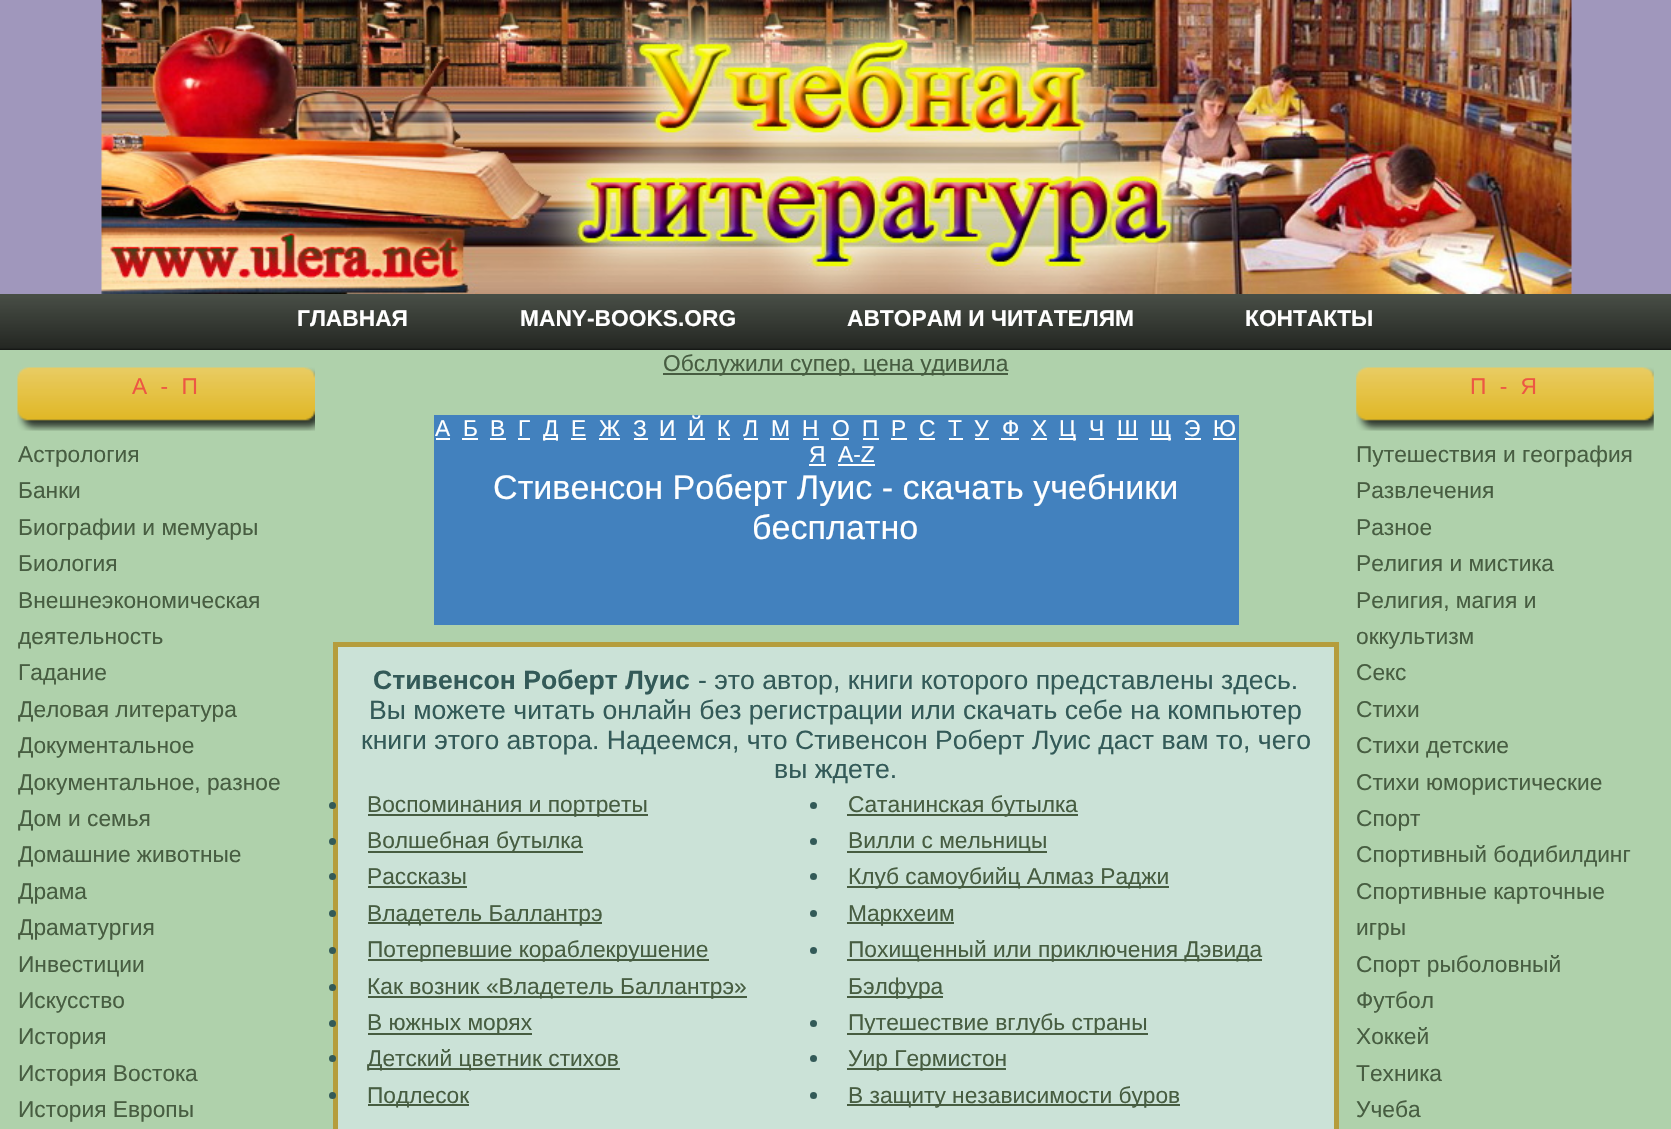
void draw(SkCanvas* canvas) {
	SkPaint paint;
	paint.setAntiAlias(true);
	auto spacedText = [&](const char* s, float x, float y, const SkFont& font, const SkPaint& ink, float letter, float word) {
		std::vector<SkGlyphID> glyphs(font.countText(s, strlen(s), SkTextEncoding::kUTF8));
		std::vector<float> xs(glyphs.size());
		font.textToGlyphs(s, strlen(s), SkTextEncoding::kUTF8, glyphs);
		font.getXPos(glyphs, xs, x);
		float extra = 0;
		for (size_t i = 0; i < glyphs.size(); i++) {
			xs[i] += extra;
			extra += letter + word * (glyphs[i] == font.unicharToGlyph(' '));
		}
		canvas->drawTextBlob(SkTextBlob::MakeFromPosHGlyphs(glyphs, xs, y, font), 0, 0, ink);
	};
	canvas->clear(0xffafd1ab);
	paint.setColor(0xffa097bc);
	canvas->drawRect(SkRect::MakeXYWH(0, 0, 1671, 294), paint);
	canvas->drawImageRect(SkImages::DeferredFromEncodedData(SkData::MakeFromFileName("img1.png")), SkRect::MakeXYWH(101, 0, 1471, 294), SkSamplingOptions());
	canvas->drawImageRect(SkImages::DeferredFromEncodedData(SkData::MakeFromFileName("img2.png")), SkRect::MakeXYWH(0, 294, 1671, 56), SkSamplingOptions());
	SkFont f1(fontMgr->matchFamilyStyle("Liberation Sans", SkFontStyle::Bold()), 22.75);
	f1.setSubpixel(true);
	paint.setColor(0xffffffff);
	canvas->drawString("ГЛАВНАЯ", 297, 326, f1, paint);
	canvas->drawString("MANY-BOOKS.ORG", 520, 326, f1, paint);
	canvas->drawString("АВТОРАМ И ЧИТАТЕЛЯМ", 847, 326, f1, paint);
	canvas->drawString("КОНТАКТЫ", 1245, 326, f1, paint);
	canvas->drawImageRect(SkImages::DeferredFromEncodedData(SkData::MakeFromFileName("img3.png")), SkRect::MakeXYWH(17, 367, 298, 64), SkSamplingOptions());
	SkFont f2(fontMgr->matchFamilyStyle("Liberation Sans", SkFontStyle::Normal()), 22.75);
	f2.setSubpixel(true);
	paint.setColor(0xffed5743);
	spacedText("А - П", 132, 394, f2, paint, 3.5, 0);
	paint.setColor(0xff475d41);
	canvas->drawString("Астрология", 18, 462, f2, paint);
	canvas->drawString("Банки", 18, 498, f2, paint);
	canvas->drawString("Биографии и мемуары", 18, 535, f2, paint);
	canvas->drawString("Биология", 18, 571, f2, paint);
	canvas->drawString("Внешнеэкономическая", 18, 608, f2, paint);
	canvas->drawString("деятельность", 18, 644, f2, paint);
	canvas->drawString("Гадание", 18, 680, f2, paint);
	canvas->drawString("Деловая литература", 18, 717, f2, paint);
	canvas->drawString("Документальное", 18, 753, f2, paint);
	canvas->drawString("Документальное, разное", 18, 790, f2, paint);
	canvas->drawString("Дом и семья", 18, 826, f2, paint);
	canvas->drawString("Домашние животные", 18, 862, f2, paint);
	canvas->drawString("Драма", 18, 899, f2, paint);
	canvas->drawString("Драматургия", 18, 935, f2, paint);
	canvas->drawString("Инвестиции", 18, 972, f2, paint);
	canvas->drawString("Искусство", 18, 1008, f2, paint);
	canvas->drawString("История", 18, 1044, f2, paint);
	canvas->drawString("История Востока", 18, 1081, f2, paint);
	canvas->drawString("История Европы", 18, 1117, f2, paint);
	canvas->drawRect(SkRect::MakeXYWH(663, 373, 345, 2), paint);
	canvas->drawString("Обслужили супер, цена удивила", 663, 371, f2, paint);
	paint.setColor(0xff4281be);
	canvas->drawRect(SkRect::MakeXYWH(434, 415, 805, 210), paint);
	paint.setColor(0xffffffff);
	canvas->drawString("А", 435, 436, f2, paint);
	canvas->drawRect(SkRect::MakeXYWH(436, 438, 14, 2), paint);
	canvas->drawString("Б", 463, 436, f2, paint);
	canvas->drawRect(SkRect::MakeXYWH(462, 438, 16, 2), paint);
	canvas->drawString("В", 490, 436, f2, paint);
	canvas->drawRect(SkRect::MakeXYWH(490, 438, 16, 2), paint);
	canvas->drawString("Г", 518, 436, f2, paint);
	canvas->drawRect(SkRect::MakeXYWH(518, 438, 12, 2), paint);
	canvas->drawRect(SkRect::MakeXYWH(543, 438, 15, 2), paint);
	canvas->drawString("Д", 543, 436, f2, paint);
	canvas->drawString("Е", 571, 436, f2, paint);
	canvas->drawRect(SkRect::MakeXYWH(571, 438, 15, 2), paint);
	canvas->drawString("Ж", 599, 436, f2, paint);
	canvas->drawRect(SkRect::MakeXYWH(599, 438, 21, 2), paint);
	canvas->drawString("З", 633, 436, f2, paint);
	canvas->drawRect(SkRect::MakeXYWH(634, 438, 14, 2), paint);
	canvas->drawString("И", 659, 436, f2, paint);
	canvas->drawRect(SkRect::MakeXYWH(660, 438, 16, 2), paint);
	canvas->drawString("Й", 688, 436, f2, paint);
	canvas->drawRect(SkRect::MakeXYWH(688, 438, 17, 2), paint);
	canvas->drawString("К", 717, 436, f2, paint);
	canvas->drawRect(SkRect::MakeXYWH(718, 438, 12, 2), paint);
	canvas->drawString("Л", 743, 436, f2, paint);
	canvas->drawRect(SkRect::MakeXYWH(744, 438, 14, 2), paint);
	canvas->drawString("М", 771, 436, f2, paint);
	canvas->drawRect(SkRect::MakeXYWH(770, 438, 19, 2), paint);
	canvas->drawString("Н", 802, 436, f2, paint);
	canvas->drawRect(SkRect::MakeXYWH(803, 438, 16, 2), paint);
	canvas->drawString("О", 832, 436, f2, paint);
	canvas->drawRect(SkRect::MakeXYWH(831, 438, 18, 2), paint);
	canvas->drawString("П", 862, 436, f2, paint);
	canvas->drawRect(SkRect::MakeXYWH(863, 438, 16, 2), paint);
	canvas->drawString("Р", 891, 436, f2, paint);
	canvas->drawRect(SkRect::MakeXYWH(891, 438, 16, 2), paint);
	canvas->drawString("С", 919, 436, f2, paint);
	canvas->drawRect(SkRect::MakeXYWH(919, 438, 16, 2), paint);
	canvas->drawString("Т", 948, 436, f2, paint);
	canvas->drawRect(SkRect::MakeXYWH(949, 438, 14, 2), paint);
	canvas->drawString("У", 974, 436, f2, paint);
	canvas->drawRect(SkRect::MakeXYWH(975, 438, 14, 2), paint);
	canvas->drawString("Ф", 1002, 436, f2, paint);
	canvas->drawRect(SkRect::MakeXYWH(1001, 438, 18, 2), paint);
	canvas->drawString("Х", 1032, 436, f2, paint);
	canvas->drawRect(SkRect::MakeXYWH(1031, 438, 16, 2), paint);
	canvas->drawRect(SkRect::MakeXYWH(1059, 438, 17, 2), paint);
	canvas->drawString("Ц", 1059, 436, f2, paint);
	canvas->drawString("Ч", 1089, 436, f2, paint);
	canvas->drawRect(SkRect::MakeXYWH(1089, 438, 15, 2), paint);
	canvas->drawString("Ш", 1117, 436, f2, paint);
	canvas->drawRect(SkRect::MakeXYWH(1117, 438, 21, 2), paint);
	canvas->drawRect(SkRect::MakeXYWH(1150, 438, 21, 2), paint);
	canvas->drawString("Щ", 1150, 436, f2, paint);
	canvas->drawString("Э", 1184, 436, f2, paint);
	canvas->drawRect(SkRect::MakeXYWH(1185, 438, 16, 2), paint);
	canvas->drawString("Ю", 1213, 436, f2, paint);
	canvas->drawRect(SkRect::MakeXYWH(1213, 438, 23, 2), paint);
	canvas->drawString("Я", 809, 462, f2, paint);
	canvas->drawRect(SkRect::MakeXYWH(809, 464, 17, 2), paint);
	canvas->drawString("A-Z", 838, 462, f2, paint);
	canvas->drawRect(SkRect::MakeXYWH(838, 464, 37, 2), paint);
	SkFont f3(fontMgr->matchFamilyStyle("Liberation Sans", SkFontStyle::Normal()), 34.1);
	f3.setSubpixel(true);
	canvas->drawString("Стивенсон Роберт Луис - скачать учебники", 493, 499, f3, paint);
	canvas->drawString("бесплатно", 752, 539, f3, paint);
	paint.setColor(0xffcbe2d7);
	canvas->drawRect(SkRect::MakeXYWH(335.5, 644.5, 1001, 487), paint);
	paint.setStroke(true);
	paint.setStrokeWidth(5);
	paint.setColor(0xffb59d3c);
	canvas->drawRect(SkRect::MakeXYWH(335.5, 644.5, 1001, 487), paint);
	SkFont f4(fontMgr->matchFamilyStyle("Liberation Sans", SkFontStyle::Bold()), 26.6);
	f4.setSubpixel(true);
	paint.setStroke(false);
	paint.setColor(0xff335a58);
	canvas->drawString("Стивенсон Роберт Луис", 373, 689, f4, paint);
	SkFont f5(fontMgr->matchFamilyStyle("Liberation Sans", SkFontStyle::Normal()), 26.6);
	f5.setSubpixel(true);
	canvas->drawString("- это автор, книги которого представлены здесь.", 698, 689, f5, paint);
	canvas->drawString("Вы можете читать онлайн без регистрации или скачать себе на компьютер", 369, 719, f5, paint);
	canvas->drawString("книги этого автора. Надеемся, что Стивенсон Роберт Луис даст вам то, чего", 361, 749, f5, paint);
	canvas->drawString("вы ждете.", 774, 778, f5, paint);
	canvas->drawCircle(332.5, 805.5, 3.5, paint);
	paint.setColor(0xff475d41);
	canvas->drawRect(SkRect::MakeXYWH(368, 814, 280, 2), paint);
	canvas->drawString("Воспоминания и портреты", 367, 812, f2, paint);
	paint.setColor(0xff335a58);
	canvas->drawCircle(332.5, 841.5, 3.5, paint);
	paint.setColor(0xff475d41);
	canvas->drawRect(SkRect::MakeXYWH(368, 851, 215, 2), paint);
	canvas->drawString("Волшебная бутылка", 367, 848, f2, paint);
	paint.setColor(0xff335a58);
	canvas->drawCircle(332.5, 876.5, 3.5, paint);
	paint.setColor(0xff475d41);
	canvas->drawString("Рассказы", 367, 884, f2, paint);
	canvas->drawRect(SkRect::MakeXYWH(368, 886, 99, 2), paint);
	paint.setColor(0xff335a58);
	canvas->drawCircle(332.5, 913.5, 3.5, paint);
	paint.setColor(0xff475d41);
	canvas->drawRect(SkRect::MakeXYWH(368, 922, 234, 2), paint);
	canvas->drawString("Владетель Баллантрэ", 367, 921, f2, paint);
	paint.setColor(0xff335a58);
	canvas->drawCircle(332.5, 950.5, 3.5, paint);
	paint.setColor(0xff475d41);
	canvas->drawRect(SkRect::MakeXYWH(368, 959, 341, 2), paint);
	canvas->drawString("Потерпевшие кораблекрушение", 367, 957, f2, paint);
	paint.setColor(0xff335a58);
	canvas->drawCircle(332.5, 987.5, 3.5, paint);
	paint.setColor(0xff475d41);
	canvas->drawRect(SkRect::MakeXYWH(368, 996, 379, 2), paint);
	canvas->drawString("Как возник «Владетель Баллантрэ»", 367, 994, f2, paint);
	paint.setColor(0xff335a58);
	canvas->drawCircle(332.5, 1023.5, 3.5, paint);
	paint.setColor(0xff475d41);
	canvas->drawRect(SkRect::MakeXYWH(368, 1033, 164, 2), paint);
	canvas->drawString("В южных морях", 367, 1030, f2, paint);
	paint.setColor(0xff335a58);
	canvas->drawCircle(332.5, 1058.5, 3.5, paint);
	paint.setColor(0xff475d41);
	canvas->drawRect(SkRect::MakeXYWH(368, 1068, 252, 2), paint);
	canvas->drawString("Детский цветник стихов", 367, 1066, f2, paint);
	paint.setColor(0xff335a58);
	canvas->drawCircle(332.5, 1095.5, 3.5, paint);
	paint.setColor(0xff475d41);
	canvas->drawRect(SkRect::MakeXYWH(368, 1104, 101, 2), paint);
	canvas->drawString("Подлесок", 367, 1103, f2, paint);
	paint.setColor(0xff335a58);
	canvas->drawCircle(813.5, 805.5, 3.5, paint);
	paint.setColor(0xff475d41);
	canvas->drawRect(SkRect::MakeXYWH(847, 814, 231, 2), paint);
	canvas->drawString("Сатанинская бутылка", 848, 812, f2, paint);
	paint.setColor(0xff335a58);
	canvas->drawCircle(813.5, 841.5, 3.5, paint);
	paint.setColor(0xff475d41);
	canvas->drawRect(SkRect::MakeXYWH(847, 851, 200, 2), paint);
	canvas->drawString("Вилли с мельницы", 848, 848, f2, paint);
	paint.setColor(0xff335a58);
	canvas->drawCircle(813.5, 876.5, 3.5, paint);
	paint.setColor(0xff475d41);
	canvas->drawRect(SkRect::MakeXYWH(847, 886, 322, 2), paint);
	canvas->drawString("Клуб самоубийц Алмаз Раджи", 848, 884, f2, paint);
	paint.setColor(0xff335a58);
	canvas->drawCircle(813.5, 913.5, 3.5, paint);
	paint.setColor(0xff475d41);
	canvas->drawRect(SkRect::MakeXYWH(847, 922, 107, 2), paint);
	canvas->drawString("Маркхеим", 848, 921, f2, paint);
	paint.setColor(0xff335a58);
	canvas->drawCircle(813.5, 950.5, 3.5, paint);
	paint.setColor(0xff475d41);
	canvas->drawRect(SkRect::MakeXYWH(847, 959, 415, 2), paint);
	canvas->drawString("Похищенный или приключения Дэвида", 848, 957, f2, paint);
	canvas->drawRect(SkRect::MakeXYWH(847, 996, 96, 2), paint);
	canvas->drawString("Бэлфура", 848, 994, f2, paint);
	paint.setColor(0xff335a58);
	canvas->drawCircle(813.5, 1023.5, 3.5, paint);
	paint.setColor(0xff475d41);
	canvas->drawRect(SkRect::MakeXYWH(847, 1033, 301, 2), paint);
	canvas->drawString("Путешествие вглубь страны", 848, 1030, f2, paint);
	paint.setColor(0xff335a58);
	canvas->drawCircle(813.5, 1058.5, 3.5, paint);
	paint.setColor(0xff475d41);
	canvas->drawRect(SkRect::MakeXYWH(847, 1068, 159, 2), paint);
	canvas->drawString("Уир Гермистон", 848, 1066, f2, paint);
	paint.setColor(0xff335a58);
	canvas->drawCircle(813.5, 1095.5, 3.5, paint);
	paint.setColor(0xff475d41);
	canvas->drawRect(SkRect::MakeXYWH(847, 1104, 333, 2), paint);
	canvas->drawString("В защиту независимости буров", 848, 1103, f2, paint);
	canvas->drawImageRect(SkImages::DeferredFromEncodedData(SkData::MakeFromFileName("img4.png")), SkRect::MakeXYWH(1356, 367, 298, 64), SkSamplingOptions());
	paint.setColor(0xffed5743);
	spacedText("П - Я", 1470, 394, f2, paint, 3.5, 0);
	paint.setColor(0xff475d41);
	canvas->drawString("Путешествия и география", 1356, 462, f2, paint);
	canvas->drawString("Развлечения", 1356, 498, f2, paint);
	canvas->drawString("Разное", 1356, 535, f2, paint);
	canvas->drawString("Религия и мистика", 1356, 571, f2, paint);
	canvas->drawString("Религия, магия и", 1356, 608, f2, paint);
	canvas->drawString("оккультизм", 1356, 644, f2, paint);
	canvas->drawString("Секс", 1356, 680, f2, paint);
	canvas->drawString("Стихи", 1356, 717, f2, paint);
	canvas->drawString("Стихи детские", 1356, 753, f2, paint);
	canvas->drawString("Стихи юмористические", 1356, 790, f2, paint);
	canvas->drawString("Спорт", 1356, 826, f2, paint);
	canvas->drawString("Спортивный бодибилдинг", 1356, 862, f2, paint);
	canvas->drawString("Спортивные карточные", 1356, 899, f2, paint);
	canvas->drawString("игры", 1356, 935, f2, paint);
	canvas->drawString("Спорт рыболовный", 1356, 972, f2, paint);
	canvas->drawString("Футбол", 1356, 1008, f2, paint);
	canvas->drawString("Хоккей", 1356, 1044, f2, paint);
	canvas->drawString("Техника", 1356, 1081, f2, paint);
	canvas->drawString("Учеба", 1356, 1117, f2, paint);
}
